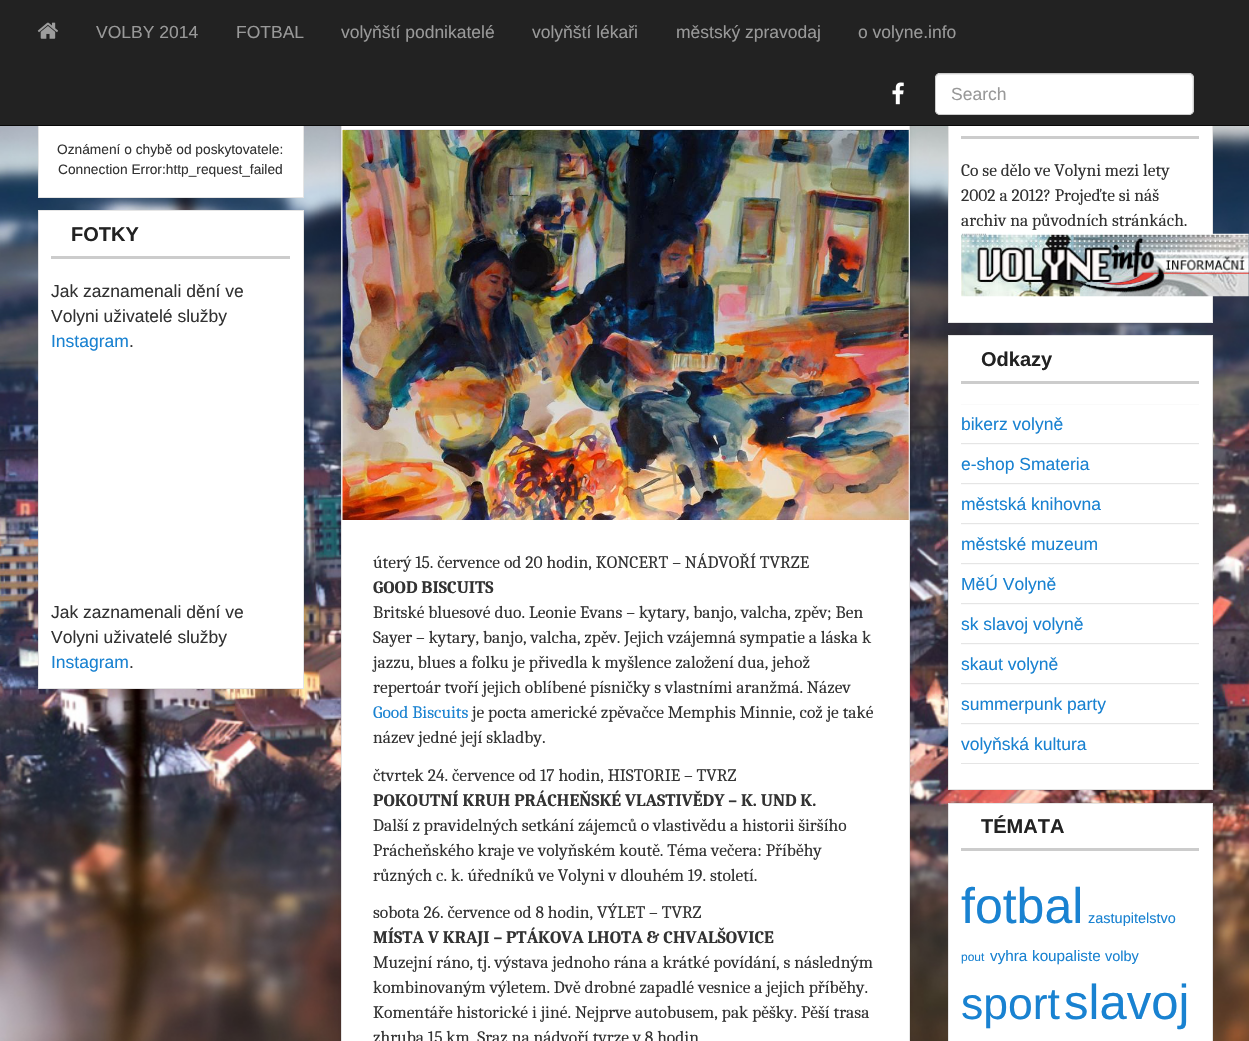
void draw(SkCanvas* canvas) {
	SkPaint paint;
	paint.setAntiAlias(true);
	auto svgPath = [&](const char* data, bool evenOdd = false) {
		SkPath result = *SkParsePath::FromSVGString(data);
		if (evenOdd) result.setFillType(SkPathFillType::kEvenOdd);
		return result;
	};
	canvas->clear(0xffffffff);
	canvas->drawImageRect(SkImages::DeferredFromEncodedData(SkData::MakeFromFileName("img1.png")), SkRect::MakeXYWH(0, 126, 1249, 915), SkSamplingOptions());
	paint.setColor(0xffffffff);
	canvas->drawRect(SkRect::MakeXYWH(39, 126, 264, 71), paint);
	paint.setStroke(true);
	paint.setStrokeWidth(1);
	paint.setColor(0xffe5e5e5);
	canvas->drawRect(SkRect::MakeXYWH(38.5, 69.5, 265, 128), paint);
	paint.setStroke(false);
	paint.setColor(0x14000000);
	paint.setMaskFilter(SkMaskFilter::MakeBlur(kNormal_SkBlurStyle, 2));
	canvas->drawRect(SkRect::MakeXYWH(341, 70, 569, 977), paint);
	paint.setMaskFilter(nullptr);
	paint.setColor(0xffffffff);
	canvas->drawRect(SkRect::MakeXYWH(342, 126, 567, 915), paint);
	paint.setStroke(true);
	paint.setColor(0xffe5e5e5);
	canvas->drawRect(SkRect::MakeXYWH(341.5, 69.5, 568, 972), paint);
	paint.setStroke(false);
	paint.setColor(0xffffffff);
	canvas->drawRect(SkRect::MakeXYWH(949, 126, 263, 196), paint);
	paint.setStroke(true);
	paint.setColor(0xffe5e5e5);
	canvas->drawRect(SkRect::MakeXYWH(948.5, 69.5, 264, 253), paint);
	paint.setStroke(false);
	paint.setColor(0xff222222);
	canvas->drawRect(SkRect::MakeXYWH(0, 0, 1249, 125), paint);
	paint.setColor(0xff080808);
	canvas->drawRect(SkRect::MakeXYWH(0, 125, 1249, 1), paint);
	canvas->drawImageRect(SkImages::DeferredFromEncodedData(SkData::MakeFromFileName("img2.png")), SkRect::MakeXYWH(37, 22, 21, 17), SkSamplingOptions());
	SkFont f1(fontMgr->matchFamilyStyle("Liberation Sans", SkFontStyle::Normal()), 17.5);
	f1.setSubpixel(true);
	paint.setColor(0xff999999);
	canvas->drawString("VOLBY 2014", 96, 38, f1, paint);
	canvas->drawString("FOTBAL", 236, 38, f1, paint);
	canvas->drawString("volyňští podnikatelé", 341, 38, f1, paint);
	canvas->drawString("volyňští lékaři", 532, 38, f1, paint);
	canvas->drawString("městský zpravodaj", 676, 38, f1, paint);
	canvas->drawString("o volyne.info", 858, 38, f1, paint);
	canvas->drawImageRect(SkImages::DeferredFromEncodedData(SkData::MakeFromFileName("img3.png")), SkRect::MakeXYWH(892, 82, 12, 23), SkSamplingOptions());
	paint.setColor(0xffffffff);
	canvas->drawRoundRect(SkRect::MakeXYWH(935, 73, 259, 42), 5, 5, paint);
	paint.setColor(0xffececec);
	canvas->drawPath(svgPath("M940 75H1189C1194 75 1192 88 1192 90V113C1192 112 1193 111 1193 110V78C1193 76 1191 74 1189 74H940C938 74 936 76 936 78V79C936 77 938 75 940 75Z"), paint);
	paint.setStroke(true);
	paint.setColor(0xffcccccc);
	canvas->drawRoundRect(SkRect::MakeXYWH(935.5, 73.5, 258, 41), 4.5, 4.5, paint);
	paint.setStroke(false);
	paint.setColor(0xff999999);
	canvas->drawString("Search", 951, 100, f1, paint);
	SkFont f2(fontMgr->matchFamilyStyle("Liberation Sans", SkFontStyle::Normal()), 13.75);
	f2.setSubpixel(true);
	paint.setColor(0xff333333);
	canvas->drawString("Oznámení o chybě od poskytovatele:", 57, 154, f2, paint);
	canvas->drawString("Connection Error:http_request_failed", 58, 174, f2, paint);
	paint.setColor(0xffffffff);
	canvas->drawRect(SkRect::MakeXYWH(38.5, 210.5, 265, 478), paint);
	paint.setStroke(true);
	paint.setColor(0xffe5e5e5);
	canvas->drawRect(SkRect::MakeXYWH(38.5, 210.5, 265, 478), paint);
	paint.setStroke(false);
	paint.setColor(0xffcccccc);
	canvas->drawRect(SkRect::MakeXYWH(51, 256, 239, 3), paint);
	SkFont f3(fontMgr->matchFamilyStyle("Liberation Sans", SkFontStyle::Bold()), 20);
	f3.setSubpixel(true);
	paint.setColor(0xff222222);
	canvas->drawString("FOTKY", 71, 241, f3, paint);
	paint.setColor(0xff333333);
	canvas->drawString("Jak zaznamenali dění ve", 51, 297, f1, paint);
	canvas->drawString("Volyni uživatelé služby", 51, 322, f1, paint);
	paint.setColor(0xff1982d1);
	canvas->drawString("Instagram", 51, 347, f1, paint);
	paint.setColor(0xff333333);
	canvas->drawString(".", 129, 347, f1, paint);
	canvas->drawString("Jak zaznamenali dění ve", 51, 618, f1, paint);
	canvas->drawString("Volyni uživatelé služby", 51, 643, f1, paint);
	paint.setColor(0xff1982d1);
	canvas->drawString("Instagram", 51, 668, f1, paint);
	paint.setColor(0xff333333);
	canvas->drawString(".", 129, 668, f1, paint);
	paint.setColor(0xffeeeeee);
	canvas->drawRect(SkRect::MakeXYWH(343, 129, 566, 1), paint);
	canvas->drawImageRect(SkImages::DeferredFromEncodedData(SkData::MakeFromFileName("img4.png")), SkRect::MakeXYWH(342, 130, 567, 390), SkSamplingOptions());
	SkFont f4(fontMgr->matchFamilyStyle("Caladea", SkFontStyle::Normal()), 17.5);
	f4.setSubpixel(true);
	paint.setColor(0xff333333);
	canvas->drawString("úterý 15. července od 20 hodin, KONCERT – NÁDVOŘÍ TVRZE", 373, 568, f4, paint);
	SkFont f5(fontMgr->matchFamilyStyle("Caladea", SkFontStyle::Bold()), 17.5);
	f5.setSubpixel(true);
	canvas->drawString("GOOD BISCUITS", 373, 593, f5, paint);
	canvas->drawString("Britské bluesové duo. Leonie Evans – kytary, banjo, valcha, zpěv; Ben", 373, 618, f4, paint);
	canvas->drawString("Sayer – kytary, banjo, valcha, zpěv. Jejich vzájemná sympatie a láska k", 373, 643, f4, paint);
	canvas->drawString("jazzu, blues a folku je přivedla k myšlence založení dua, jehož", 373, 668, f4, paint);
	canvas->drawString("repertoár tvoří jejich oblíbené písničky s vlastními aranžmá. Název", 373, 693, f4, paint);
	paint.setColor(0xff1982d1);
	canvas->drawString("Good Biscuits", 373, 718, f4, paint);
	paint.setColor(0xff333333);
	canvas->drawString("je pocta americké zpěvačce Memphis Minnie, což je také", 472, 718, f4, paint);
	canvas->drawString("název jedné její skladby.", 373, 743, f4, paint);
	canvas->drawString("čtvrtek 24. července od 17 hodin, HISTORIE – TVRZ", 373, 781, f4, paint);
	canvas->drawString("POKOUTNÍ KRUH PRÁCHEŇSKÉ VLASTIVĚDY – K. UND K.", 373, 806, f5, paint);
	canvas->drawString("Další z pravidelných setkání zájemců o vlastivědu a historii širšího", 373, 831, f4, paint);
	canvas->drawString("Prácheňského kraje ve volyňském koutě. Téma večera: Příběhy", 373, 856, f4, paint);
	canvas->drawString("různých c. k. úředníků ve Volyni v dlouhém 19. století.", 373, 881, f4, paint);
	canvas->drawString("sobota 26. července od 8 hodin, VÝLET – TVRZ", 373, 918, f4, paint);
	canvas->drawString("MÍSTA V KRAJI – PTÁKOVA LHOTA & CHVALŠOVICE", 373, 943, f5, paint);
	canvas->drawString("Muzejní ráno, tj. výstava jednoho rána a krátké povídání, s následným", 373, 968, f4, paint);
	canvas->drawString("kombinovaným výletem. Dvě drobné zapadlé vesnice a jejich příběhy.", 373, 993, f4, paint);
	canvas->drawString("Komentáře historické i jiné. Nejprve autobusem, pak pěšky. Pěší trasa", 373, 1018, f4, paint);
	canvas->drawString("zhruba 15 km. Sraz na nádvoří tvrze v 8 hodin", 373, 1043, f4, paint);
	paint.setColor(0xffcccccc);
	canvas->drawRect(SkRect::MakeXYWH(961, 136, 238, 3), paint);
	paint.setColor(0xff333333);
	canvas->drawString("Co se dělo ve Volyni mezi lety", 961, 176, f4, paint);
	canvas->drawString("2002 a 2012? Projeďte si náš", 961, 201, f4, paint);
	canvas->drawString("archiv na původních stránkách.", 961, 226, f4, paint);
	canvas->drawImageRect(SkImages::DeferredFromEncodedData(SkData::MakeFromFileName("img5.png")), SkRect::MakeXYWH(961, 233, 288, 64), SkSamplingOptions());
	paint.setColor(0xffffffff);
	canvas->drawRect(SkRect::MakeXYWH(948.5, 335.5, 264, 454), paint);
	paint.setStroke(true);
	paint.setColor(0xffe5e5e5);
	canvas->drawRect(SkRect::MakeXYWH(948.5, 335.5, 264, 454), paint);
	paint.setStroke(false);
	paint.setColor(0xffcccccc);
	canvas->drawRect(SkRect::MakeXYWH(961, 381, 238, 3), paint);
	paint.setColor(0xff222222);
	canvas->drawString("Odkazy", 981, 366, f3, paint);
	paint.setColor(0xfffafafa);
	canvas->drawRect(SkRect::MakeXYWH(961, 404, 238, 1), paint);
	paint.setColor(0xffe5e5e5);
	canvas->drawRect(SkRect::MakeXYWH(961, 443, 238, 1), paint);
	paint.setColor(0xff1982d1);
	canvas->drawString("bikerz volyně", 961, 430, f1, paint);
	paint.setColor(0xfffafafa);
	canvas->drawRect(SkRect::MakeXYWH(961, 444, 238, 1), paint);
	paint.setColor(0xffe5e5e5);
	canvas->drawRect(SkRect::MakeXYWH(961, 483, 238, 1), paint);
	paint.setColor(0xff1982d1);
	canvas->drawString("e-shop Smateria", 961, 470, f1, paint);
	paint.setColor(0xfffafafa);
	canvas->drawRect(SkRect::MakeXYWH(961, 484, 238, 1), paint);
	paint.setColor(0xffe5e5e5);
	canvas->drawRect(SkRect::MakeXYWH(961, 523, 238, 1), paint);
	paint.setColor(0xff1982d1);
	canvas->drawString("městská knihovna", 961, 510, f1, paint);
	paint.setColor(0xfffafafa);
	canvas->drawRect(SkRect::MakeXYWH(961, 524, 238, 1), paint);
	paint.setColor(0xffe5e5e5);
	canvas->drawRect(SkRect::MakeXYWH(961, 563, 238, 1), paint);
	paint.setColor(0xff1982d1);
	canvas->drawString("městské muzeum", 961, 550, f1, paint);
	paint.setColor(0xfffafafa);
	canvas->drawRect(SkRect::MakeXYWH(961, 564, 238, 1), paint);
	paint.setColor(0xffe5e5e5);
	canvas->drawRect(SkRect::MakeXYWH(961, 603, 238, 1), paint);
	paint.setColor(0xff1982d1);
	canvas->drawString("MěÚ Volyně", 961, 590, f1, paint);
	paint.setColor(0xfffafafa);
	canvas->drawRect(SkRect::MakeXYWH(961, 604, 238, 1), paint);
	paint.setColor(0xffe5e5e5);
	canvas->drawRect(SkRect::MakeXYWH(961, 643, 238, 1), paint);
	paint.setColor(0xff1982d1);
	canvas->drawString("sk slavoj volyně", 961, 630, f1, paint);
	paint.setColor(0xfffafafa);
	canvas->drawRect(SkRect::MakeXYWH(961, 644, 238, 1), paint);
	paint.setColor(0xffe5e5e5);
	canvas->drawRect(SkRect::MakeXYWH(961, 683, 238, 1), paint);
	paint.setColor(0xff1982d1);
	canvas->drawString("skaut volyně", 961, 670, f1, paint);
	paint.setColor(0xfffafafa);
	canvas->drawRect(SkRect::MakeXYWH(961, 684, 238, 1), paint);
	paint.setColor(0xffe5e5e5);
	canvas->drawRect(SkRect::MakeXYWH(961, 723, 238, 1), paint);
	paint.setColor(0xff1982d1);
	canvas->drawString("summerpunk party", 961, 710, f1, paint);
	paint.setColor(0xfffafafa);
	canvas->drawRect(SkRect::MakeXYWH(961, 724, 238, 1), paint);
	paint.setColor(0xffe5e5e5);
	canvas->drawRect(SkRect::MakeXYWH(961, 763, 238, 1), paint);
	paint.setColor(0xff1982d1);
	canvas->drawString("volyňská kultura", 961, 750, f1, paint);
	paint.setColor(0xffffffff);
	canvas->drawRect(SkRect::MakeXYWH(948.5, 803.5, 264, 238), paint);
	paint.setStroke(true);
	paint.setColor(0xffe5e5e5);
	canvas->drawRect(SkRect::MakeXYWH(948.5, 803.5, 264, 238), paint);
	paint.setStroke(false);
	paint.setColor(0xffcccccc);
	canvas->drawRect(SkRect::MakeXYWH(961, 848, 238, 3), paint);
	paint.setColor(0xff222222);
	canvas->drawString("TÉMATA", 981, 833, f3, paint);
	SkFont f6(fontMgr->matchFamilyStyle("Liberation Sans", SkFontStyle::Normal()), 50);
	f6.setSubpixel(true);
	paint.setColor(0xff1982d1);
	canvas->drawString("fotbal", 961, 923, f6, paint);
	SkFont f7(fontMgr->matchFamilyStyle("Liberation Sans", SkFontStyle::Normal()), 14.5);
	f7.setSubpixel(true);
	canvas->drawString("zastupitelstvo", 1088, 923, f7, paint);
	SkFont f8(fontMgr->matchFamilyStyle("Liberation Sans", SkFontStyle::Normal()), 12);
	f8.setSubpixel(true);
	canvas->drawString("pout", 961, 961, f8, paint);
	SkFont f9(fontMgr->matchFamilyStyle("Liberation Sans", SkFontStyle::Normal()), 15.25);
	f9.setSubpixel(true);
	canvas->drawString("vyhra", 990, 961, f9, paint);
	canvas->drawString("koupaliste", 1032, 961, f9, paint);
	canvas->drawString("volby", 1105, 961, f7, paint);
	SkFont f10(fontMgr->matchFamilyStyle("Liberation Sans", SkFontStyle::Normal()), 44.5);
	f10.setSubpixel(true);
	canvas->drawString("sport", 961, 1019, f10, paint);
	SkFont f11(fontMgr->matchFamilyStyle("Liberation Sans", SkFontStyle::Normal()), 49);
	f11.setSubpixel(true);
	canvas->drawString("slavoj", 1064, 1019, f11, paint);
}
